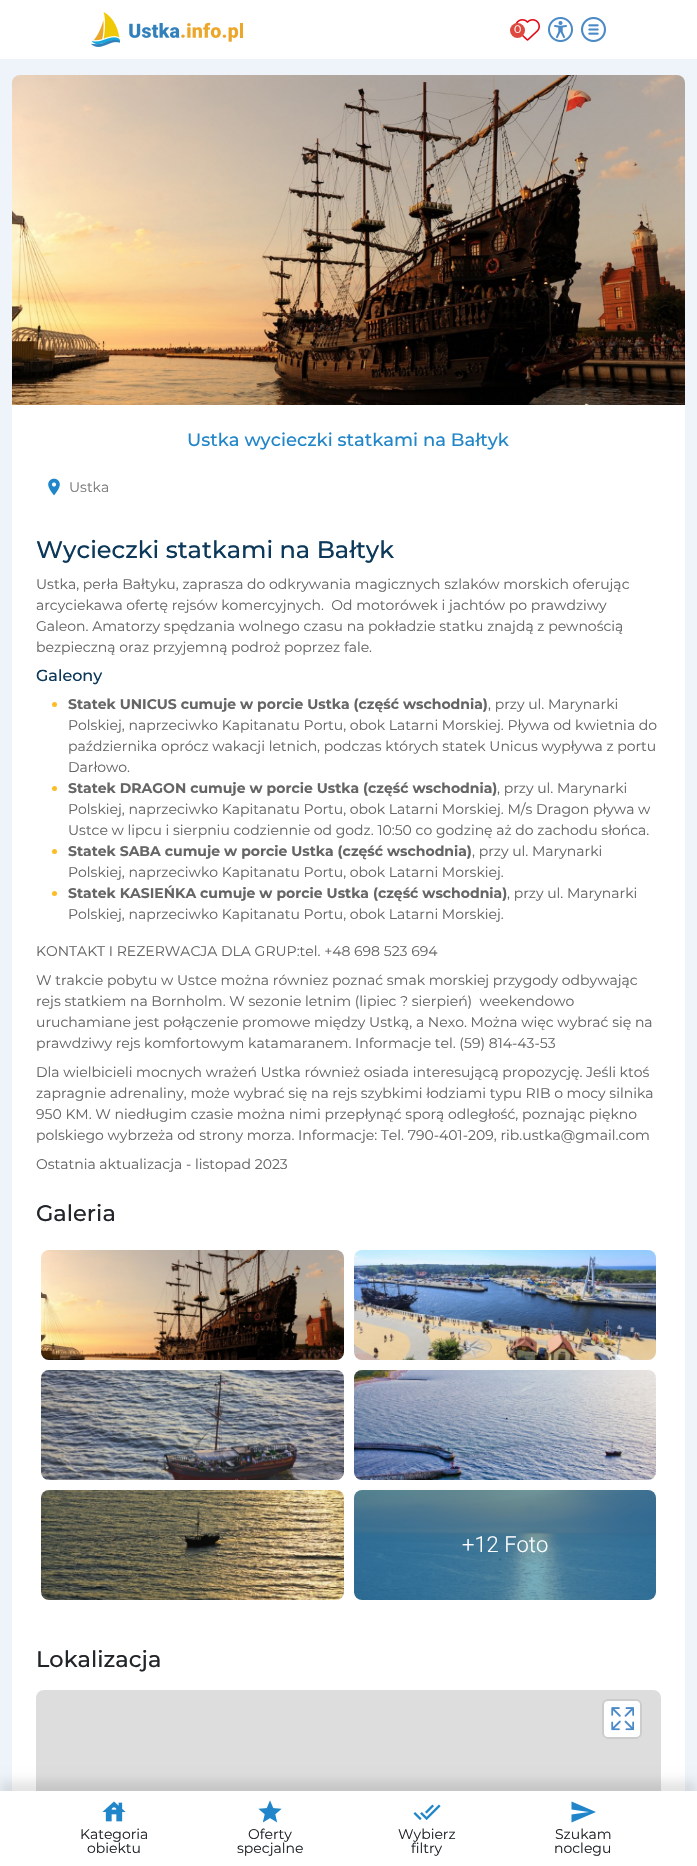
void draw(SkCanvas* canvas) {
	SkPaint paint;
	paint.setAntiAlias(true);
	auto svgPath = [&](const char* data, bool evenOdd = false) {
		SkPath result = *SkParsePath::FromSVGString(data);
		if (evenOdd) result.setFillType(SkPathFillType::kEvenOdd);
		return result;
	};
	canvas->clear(0xffeff4fb);
	paint.setColor(0xffffffff);
	canvas->drawRect(SkRect::MakeXYWH(0, 0, 697, 59), paint);
	canvas->drawImageRect(SkImages::DeferredFromEncodedData(SkData::MakeFromFileName("img1.png")), SkRect::MakeXYWH(91, 12, 152, 35), SkSamplingOptions());
	canvas->drawImageRect(SkImages::DeferredFromEncodedData(SkData::MakeFromFileName("img2.png")), SkRect::MakeXYWH(515, 19, 25, 22), SkSamplingOptions());
	paint.setColor(0xffdd483f);
	canvas->drawCircle(517.5, 30.5, 7.5, paint);
	SkFont f1(fontMgr->matchFamilyStyle("Montserrat", SkFontStyle::Normal()), 11);
	f1.setSubpixel(true);
	paint.setColor(0xffffffff);
	canvas->drawString("0", 514, 33, f1, paint);
	canvas->drawImageRect(SkImages::DeferredFromEncodedData(SkData::MakeFromFileName("img3.png")), SkRect::MakeXYWH(548, 17, 25, 25), SkSamplingOptions());
	canvas->drawImageRect(SkImages::DeferredFromEncodedData(SkData::MakeFromFileName("img4.png")), SkRect::MakeXYWH(581, 17, 25, 25), SkSamplingOptions());
	canvas->drawImageRect(SkImages::DeferredFromEncodedData(SkData::MakeFromFileName("img5.png")), SkRect::MakeXYWH(12, 75, 673, 330), SkSamplingOptions());
	canvas->drawRect(SkRect::MakeXYWH(12, 405, 673, 1386), paint);
	SkFont f2(fontMgr->matchFamilyStyle("Montserrat", SkFontStyle(500, SkFontStyle::kNormal_Width, SkFontStyle::kUpright_Slant)), 18);
	f2.setSubpixel(true);
	paint.setColor(0xff2086c9);
	canvas->drawString("Ustka wycieczki statkami na Bałtyk", 187, 446, f2, paint);
	canvas->drawImageRect(SkImages::DeferredFromEncodedData(SkData::MakeFromFileName("img6.png")), SkRect::MakeXYWH(48, 478, 12, 18), SkSamplingOptions());
	SkFont f3(fontMgr->matchFamilyStyle("Montserrat", SkFontStyle::Normal()), 14);
	f3.setSubpixel(true);
	paint.setColor(0xff797979);
	canvas->drawString("Ustka", 69, 492, f3, paint);
	SkFont f4(fontMgr->matchFamilyStyle("Montserrat", SkFontStyle(500, SkFontStyle::kNormal_Width, SkFontStyle::kUpright_Slant)), 24);
	f4.setSubpixel(true);
	paint.setColor(0xff0c3859);
	canvas->drawString("Wycieczki statkami na Bałtyk", 36, 558, f4, paint);
	paint.setColor(0xff666666);
	canvas->drawString("Ustka, perła Bałtyku, zaprasza do odkrywania magicznych szlaków morskich oferując", 36, 589, f3, paint);
	canvas->drawString("arcyciekawa ofertę rejsów komercyjnych.  Od motorówek i jachtów po prawdziwy", 36, 610, f3, paint);
	canvas->drawString("Galeon. Amatorzy spędzania wolnego czasu na pokładzie statku znajdą z pewnością", 36, 631, f3, paint);
	canvas->drawString("bezpieczną oraz przyjemną podroż poprzez fale.", 36, 652, f3, paint);
	SkFont f5(fontMgr->matchFamilyStyle("Montserrat", SkFontStyle(500, SkFontStyle::kNormal_Width, SkFontStyle::kUpright_Slant)), 16);
	f5.setSubpixel(true);
	paint.setColor(0xff0c3859);
	canvas->drawString("Galeony", 36, 681, f5, paint);
	paint.setColor(0xfffdbd22);
	canvas->drawCircle(54.5, 704.5, 2.5, paint);
	SkFont f6(fontMgr->matchFamilyStyle("Montserrat", SkFontStyle::Bold()), 14);
	f6.setSubpixel(true);
	paint.setColor(0xff666666);
	canvas->drawString("Statek UNICUS cumuje w porcie Ustka (część wschodnia)", 68, 709, f6, paint);
	canvas->drawString(", przy ul. Marynarki", 488, 709, f3, paint);
	canvas->drawString("Polskiej, naprzeciwko Kapitanatu Portu, obok Latarni Morskiej. Pływa od kwietnia do", 68, 730, f3, paint);
	canvas->drawString("października oprócz wakacji letnich, podczas których statek Unicus wypływa z portu", 68, 751, f3, paint);
	canvas->drawString("Darłowo.", 68, 772, f3, paint);
	paint.setColor(0xfffdbd22);
	canvas->drawCircle(54.5, 788.5, 2.5, paint);
	paint.setColor(0xff666666);
	canvas->drawString("Statek DRAGON cumuje w porcie Ustka (część wschodnia)", 68, 793, f6, paint);
	canvas->drawString(", przy ul. Marynarki", 497, 793, f3, paint);
	canvas->drawString("Polskiej, naprzeciwko Kapitanatu Portu, obok Latarni Morskiej. M/s Dragon pływa w", 68, 814, f3, paint);
	canvas->drawString("Ustce w lipcu i sierpniu codziennie od godz. 10:50 co godzinę aż do zachodu słońca.", 68, 835, f3, paint);
	paint.setColor(0xfffdbd22);
	canvas->drawCircle(54.5, 851.5, 2.5, paint);
	paint.setColor(0xff666666);
	canvas->drawString("Statek SABA cumuje w porcie Ustka (część wschodnia)", 68, 856, f6, paint);
	canvas->drawString(", przy ul. Marynarki", 472, 856, f3, paint);
	canvas->drawString("Polskiej, naprzeciwko Kapitanatu Portu, obok Latarni Morskiej.", 68, 877, f3, paint);
	paint.setColor(0xfffdbd22);
	canvas->drawCircle(54.5, 893.5, 2.5, paint);
	paint.setColor(0xff666666);
	canvas->drawString("Statek KASIEŃKA cumuje w porcie Ustka (część wschodnia)", 68, 898, f6, paint);
	canvas->drawString(", przy ul. Marynarki", 507, 898, f3, paint);
	canvas->drawString("Polskiej, naprzeciwko Kapitanatu Portu, obok Latarni Morskiej.", 68, 919, f3, paint);
	canvas->drawString("KONTAKT I REZERWACJA DLA GRUP:tel. +48 698 523 694", 36, 956, f3, paint);
	canvas->drawString("W trakcie pobytu w Ustce można równiez poznać smak morskiej przygody odbywając", 36, 985, f3, paint);
	canvas->drawString("rejs statkiem na Bornholm. W sezonie letnim (lipiec ? sierpień)  weekendowo", 36, 1006, f3, paint);
	canvas->drawString("uruchamiane jest połączenie promowe między Ustką, a Nexo. Można więc wybrać się na", 36, 1027, f3, paint);
	canvas->drawString("prawdziwy rejs komfortowym katamaranem. Informacje tel. (59) 814-43-53", 36, 1048, f3, paint);
	canvas->drawString("Dla wielbicieli mocnych wrażeń Ustka również osiada interesującą propozycję. Jeśli ktoś", 36, 1077, f3, paint);
	canvas->drawString("zapragnie adrenaliny, może wybrać się na rejs szybkimi łodziami typu RIB o mocy silnika", 36, 1098, f3, paint);
	canvas->drawString("950 KM. W niedługim czasie można nimi przepłynąć sporą odległość, poznając piękno", 36, 1119, f3, paint);
	canvas->drawString("polskiego wybrzeża od strony morza. Informacje: Tel. 790-401-209, rib.ustka@gmail.com", 36, 1140, f3, paint);
	canvas->drawString("Ostatnia aktualizacja - listopad 2023", 36, 1169, f3, paint);
	SkFont f7(fontMgr->matchFamilyStyle("Montserrat", SkFontStyle(500, SkFontStyle::kNormal_Width, SkFontStyle::kUpright_Slant)), 22.5);
	f7.setSubpixel(true);
	paint.setColor(0xff212529);
	canvas->drawString("Galeria", 36, 1221, f7, paint);
	canvas->drawImageRect(SkImages::DeferredFromEncodedData(SkData::MakeFromFileName("img7.png")), SkRect::MakeXYWH(41, 1250, 303, 110), SkSamplingOptions());
	canvas->drawImageRect(SkImages::DeferredFromEncodedData(SkData::MakeFromFileName("img8.png")), SkRect::MakeXYWH(354, 1250, 302, 110), SkSamplingOptions());
	canvas->drawImageRect(SkImages::DeferredFromEncodedData(SkData::MakeFromFileName("img9.png")), SkRect::MakeXYWH(41, 1370, 303, 110), SkSamplingOptions());
	canvas->drawImageRect(SkImages::DeferredFromEncodedData(SkData::MakeFromFileName("img10.png")), SkRect::MakeXYWH(354, 1370, 302, 110), SkSamplingOptions());
	canvas->drawImageRect(SkImages::DeferredFromEncodedData(SkData::MakeFromFileName("img11.png")), SkRect::MakeXYWH(41, 1490, 303, 110), SkSamplingOptions());
	canvas->drawImageRect(SkImages::DeferredFromEncodedData(SkData::MakeFromFileName("img12.png")), SkRect::MakeXYWH(354, 1490, 302, 110), SkSamplingOptions());
	paint.setColor(0x992086cb);
	canvas->drawRoundRect(SkRect::MakeXYWH(354, 1490, 302, 110), 8, 8, paint);
	SkFont f8(fontMgr->matchFamilyStyle("Roboto", SkFontStyle(300, SkFontStyle::kNormal_Width, SkFontStyle::kUpright_Slant)), 22);
	f8.setSubpixel(true);
	paint.setColor(0xffffffff);
	canvas->drawString("+12 Foto", 462, 1552, f8, paint);
	paint.setColor(0xff212529);
	canvas->drawString("Lokalizacja", 36, 1667, f7, paint);
	paint.setColor(0xffdddddd);
	canvas->drawRoundRect(SkRect::MakeXYWH(36, 1690, 625, 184), 8, 8, paint);
	paint.setColor(0xffffffff);
	canvas->drawRoundRect(SkRect::MakeXYWH(602, 1699, 40, 40), 6, 6, paint);
	paint.setStroke(true);
	paint.setStrokeWidth(2);
	paint.setColor(0x33000000);
	canvas->drawRoundRect(SkRect::MakeXYWH(603, 1700, 38, 38), 5, 5, paint);
	canvas->drawImageRect(SkImages::DeferredFromEncodedData(SkData::MakeFromFileName("img13.png")), SkRect::MakeXYWH(611, 1707, 23, 24), SkSamplingOptions());
	paint.setStroke(false);
	paint.setColor(0x1a000000);
	paint.setMaskFilter(SkMaskFilter::MakeBlur(kNormal_SkBlurStyle, 5));
	canvas->drawRect(SkRect::MakeXYWH(0, 1781, 697, 75), paint);
	paint.setMaskFilter(nullptr);
	paint.setColor(0xffffffff);
	canvas->drawRect(SkRect::MakeXYWH(0, 1791, 697, 75), paint);
	canvas->drawImageRect(SkImages::DeferredFromEncodedData(SkData::MakeFromFileName("img14.png")), SkRect::MakeXYWH(102, 1801, 24, 21), SkSamplingOptions());
	paint.setColor(0xff212529);
	canvas->drawString("Kategoria", 80, 1839, f3, paint);
	canvas->drawString("obiektu", 87, 1853, f3, paint);
	canvas->drawImageRect(SkImages::DeferredFromEncodedData(SkData::MakeFromFileName("img15.png")), SkRect::MakeXYWH(258, 1800, 24, 23), SkSamplingOptions());
	canvas->drawString("Oferty", 248, 1839, f3, paint);
	canvas->drawString("specjalne", 237, 1853, f3, paint);
	canvas->drawImageRect(SkImages::DeferredFromEncodedData(SkData::MakeFromFileName("img16.png")), SkRect::MakeXYWH(413, 1804, 28, 17), SkSamplingOptions());
	canvas->drawString("Wybierz", 398, 1839, f3, paint);
	canvas->drawString("filtry", 411, 1853, f3, paint);
	paint.setColor(0xff2086c9);
	canvas->drawPath(svgPath("M571.5 1822.5V1814.5L589 1812L571.5 1809.5V1801.5L596 1812Z"), paint);
	paint.setColor(0xff212529);
	canvas->drawString("Szukam", 555, 1839, f3, paint);
	canvas->drawString("noclegu", 554, 1853, f3, paint);
}
